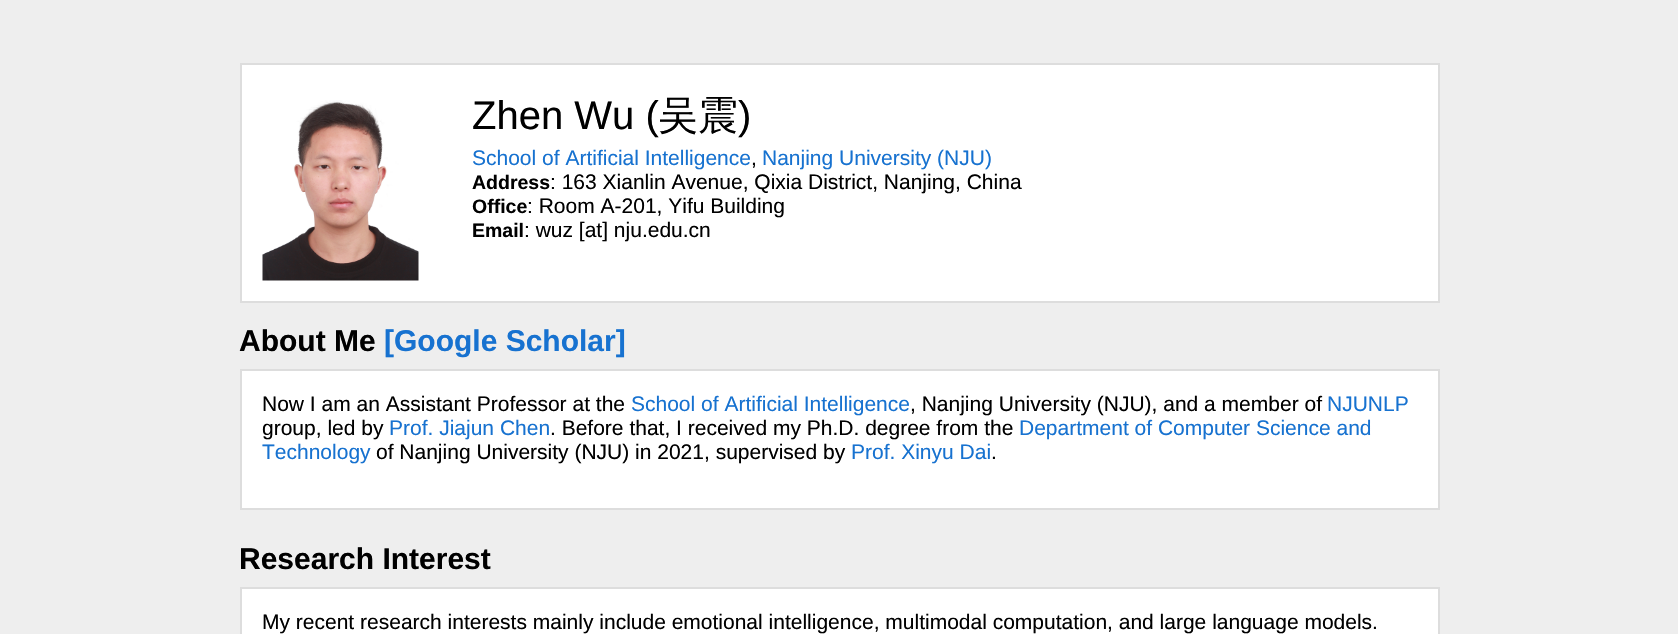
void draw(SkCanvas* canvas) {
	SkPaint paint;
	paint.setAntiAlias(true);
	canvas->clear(0xffeeeeee);
	paint.setColor(0xffffffff);
	canvas->drawRect(SkRect::MakeXYWH(241, 64, 1198, 238), paint);
	paint.setStroke(true);
	paint.setStrokeWidth(2);
	paint.setColor(0xffdddddd);
	canvas->drawRect(SkRect::MakeXYWH(241, 64, 1198, 238), paint);
	canvas->drawImageRect(SkImages::DeferredFromEncodedData(SkData::MakeFromFileName("img1.png")), SkRect::MakeXYWH(262, 100, 157, 181), SkSamplingOptions());
	SkFont f1(fontMgr->matchFamilyStyle("Liberation Sans", SkFontStyle::Normal()), 40);
	f1.setSubpixel(true);
	paint.setStroke(false);
	paint.setColor(0xff000000);
	canvas->drawString("Zhen Wu (", 472, 129, f1, paint);
	SkFont f2(fontMgr->matchFamilyStyle("WenQuanYi Zen Hei", SkFontStyle(500, SkFontStyle::kNormal_Width, SkFontStyle::kUpright_Slant)), 40);
	f2.setSubpixel(true);
	canvas->drawString("吴震", 658, 129, f2, paint);
	canvas->drawString(")", 738, 129, f1, paint);
	SkFont f3(fontMgr->matchFamilyStyle("Liberation Sans", SkFontStyle::Normal()), 21);
	f3.setSubpixel(true);
	paint.setColor(0xff1772d0);
	canvas->drawString("School of Artificial Intelligence", 472, 165, f3, paint);
	paint.setColor(0xff000000);
	canvas->drawString(",", 751, 165, f3, paint);
	paint.setColor(0xff1772d0);
	canvas->drawString("Nanjing University (NJU)", 762, 165, f3, paint);
	SkFont f4(fontMgr->matchFamilyStyle("Liberation Sans", SkFontStyle::Bold()), 19.5);
	f4.setSubpixel(true);
	paint.setColor(0xff000000);
	canvas->drawString("Address", 472, 189, f4, paint);
	canvas->drawString(": 163 Xianlin Avenue, Qixia District, Nanjing, China", 550, 189, f3, paint);
	canvas->drawString("Office", 472, 213, f4, paint);
	canvas->drawString(": Room A-201, Yifu Building", 527, 213, f3, paint);
	canvas->drawString("Email", 472, 237, f4, paint);
	canvas->drawString(": wuz [at] nju.edu.cn", 524, 237, f3, paint);
	SkFont f5(fontMgr->matchFamilyStyle("Liberation Sans", SkFontStyle::Bold()), 30);
	f5.setSubpixel(true);
	canvas->drawString("About Me", 239, 351, f5, paint);
	paint.setColor(0xff1772d0);
	canvas->drawString("[Google Scholar]", 384, 351, f5, paint);
	paint.setColor(0xffffffff);
	canvas->drawRect(SkRect::MakeXYWH(241, 370, 1198, 139), paint);
	paint.setStroke(true);
	paint.setColor(0xffdddddd);
	canvas->drawRect(SkRect::MakeXYWH(241, 370, 1198, 139), paint);
	paint.setStroke(false);
	paint.setColor(0xff000000);
	canvas->drawString("Now I am an Assistant Professor at the", 262, 411, f3, paint);
	paint.setColor(0xff1772d0);
	canvas->drawString("School of Artificial Intelligence", 631, 411, f3, paint);
	paint.setColor(0xff000000);
	canvas->drawString(", Nanjing University (NJU), and a member of", 910, 411, f3, paint);
	paint.setColor(0xff1772d0);
	canvas->drawString("NJUNLP", 1327, 411, f3, paint);
	paint.setColor(0xff000000);
	canvas->drawString("group, led by", 262, 435, f3, paint);
	paint.setColor(0xff1772d0);
	canvas->drawString("Prof. Jiajun Chen", 389, 435, f3, paint);
	paint.setColor(0xff000000);
	canvas->drawString(". Before that, I received my Ph.D. degree from the", 550, 435, f3, paint);
	paint.setColor(0xff1772d0);
	canvas->drawString("Department of Computer Science and", 1019, 435, f3, paint);
	canvas->drawString("Technology", 262, 459, f3, paint);
	paint.setColor(0xff000000);
	canvas->drawString("of Nanjing University (NJU) in 2021, supervised by", 376, 459, f3, paint);
	paint.setColor(0xff1772d0);
	canvas->drawString("Prof. Xinyu Dai", 851, 459, f3, paint);
	paint.setColor(0xff000000);
	canvas->drawString(".", 991, 459, f3, paint);
	canvas->drawString("Research Interest", 239, 569, f5, paint);
	paint.setColor(0xffffffff);
	canvas->drawRect(SkRect::MakeXYWH(241, 588, 1198, 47), paint);
	paint.setStroke(true);
	paint.setColor(0xffdddddd);
	canvas->drawRect(SkRect::MakeXYWH(241, 588, 1198, 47), paint);
	paint.setStroke(false);
	paint.setColor(0xff000000);
	canvas->drawString("My recent research interests mainly include emotional intelligence, multimodal computation, and large language models.", 262, 629, f3, paint);
}
